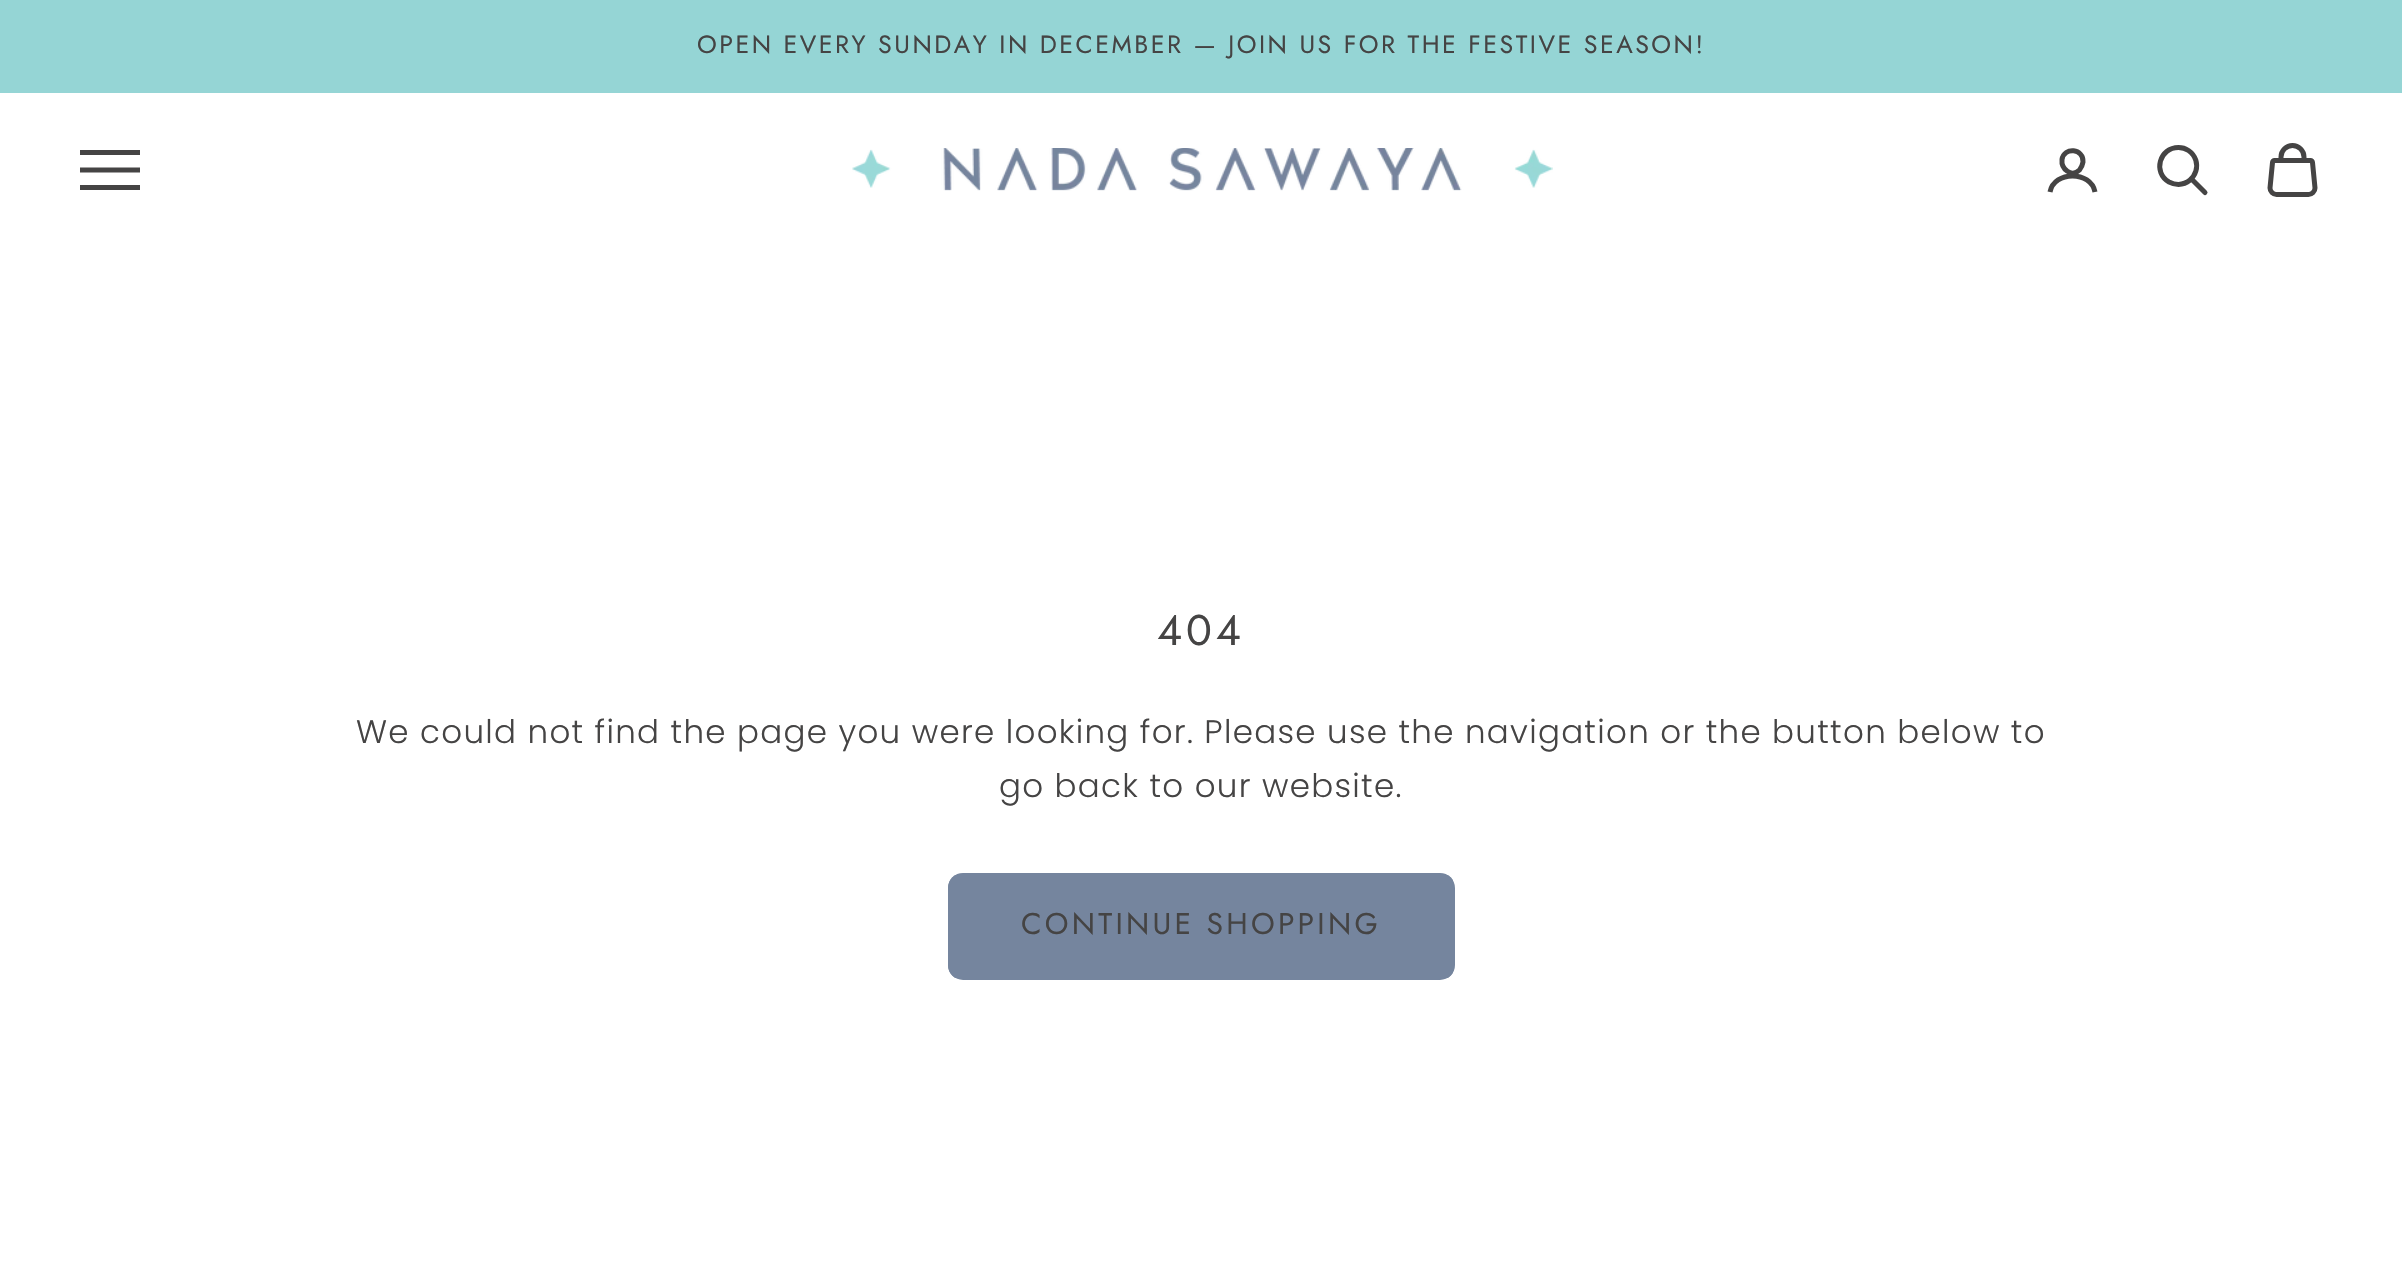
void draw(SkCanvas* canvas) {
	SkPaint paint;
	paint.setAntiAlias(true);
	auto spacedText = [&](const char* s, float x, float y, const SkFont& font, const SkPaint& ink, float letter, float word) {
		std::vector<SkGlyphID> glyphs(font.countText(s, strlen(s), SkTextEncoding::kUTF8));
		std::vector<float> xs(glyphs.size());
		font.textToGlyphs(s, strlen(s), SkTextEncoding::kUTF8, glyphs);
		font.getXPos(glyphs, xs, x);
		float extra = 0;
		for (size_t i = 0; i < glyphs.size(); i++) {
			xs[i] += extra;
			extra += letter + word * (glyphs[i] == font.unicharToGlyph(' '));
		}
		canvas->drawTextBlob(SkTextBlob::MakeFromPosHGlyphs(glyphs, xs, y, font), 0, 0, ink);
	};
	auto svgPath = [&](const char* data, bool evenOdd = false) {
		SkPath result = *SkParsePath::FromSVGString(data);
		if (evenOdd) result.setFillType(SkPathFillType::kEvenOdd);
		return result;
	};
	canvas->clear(0xffffffff);
	paint.setColor(0xff95d5d5);
	canvas->drawRect(SkRect::MakeXYWH(0, 0, 2402, 93), paint);
	SkFont f1(fontMgr->matchFamilyStyle("Jost", SkFontStyle::Normal()), 25);
	f1.setSubpixel(true);
	paint.setColor(0xff454444);
	spacedText("OPEN EVERY SUNDAY IN DECEMBER — JOIN US FOR THE FESTIVE SEASON!", 697, 53, f1, paint, 2.5, 0);
	paint.setStroke(true);
	paint.setStrokeWidth(5);
	paint.setStrokeCap(SkPaint::kSquare_Cap);
	canvas->drawPath(svgPath("M82.5 187.5H137.5M82.5 170H137.5M82.5 152.5H137.5"), paint);
	canvas->drawImageRect(SkImages::DeferredFromEncodedData(SkData::MakeFromFileName("img1.png")), SkRect::MakeXYWH(852, 148, 701, 43), SkSamplingOptions());
	paint.setStrokeCap(SkPaint::kRound_Cap);
	paint.setStrokeJoin(SkPaint::kRound_Join);
	canvas->drawPath(svgPath("M2083 162C2082.5 165 2081.5 167.5 2079.5 170C2071.5 178 2061 169 2062 159.5C2064 146.5 2084 148.5 2083 162Z"), paint);
	paint.setStrokeCap(SkPaint::kButt_Cap);
	paint.setStrokeJoin(SkPaint::kMiter_Join);
	canvas->drawPath(svgPath("M2050 192C2054 170.5 2091 170.5 2095 192"), paint);
	canvas->drawPath(svgPath("M2178.5 147.5C2159.5 147.5 2152.5 172.5 2169 182C2172 183.5 2175 184.5 2178.5 184.5C2196.5 183.5 2203.5 161 2188.5 150.5C2185.5 148.5 2182 147.5 2178.5 147.5Z"), paint);
	paint.setStrokeCap(SkPaint::kRound_Cap);
	canvas->drawPath(svgPath("M2192 179.5L2205 192.5"), paint);
	paint.setStrokeJoin(SkPaint::kRound_Join);
	canvas->drawPath(svgPath("M2274.5 160.5C2273.5 160.5 2272.5 161.5 2272.5 162.5L2270 188C2270 191.5 2273 194.5 2276.5 194.5H2308.5C2312 194.5 2315 191.5 2315 188L2312.5 162.5C2312.5 161.5 2311.5 160.5 2310.5 160.5ZM2281 160.5V157C2281 150.5 2286.5 145.5 2292.5 145.5C2298.5 145.5 2304 150.5 2304 157V160.5"), paint);
	SkFont f2(fontMgr->matchFamilyStyle("Jost", SkFontStyle::Normal()), 43);
	f2.setSubpixel(true);
	paint.setStroke(false);
	spacedText("404", 1157, 645, f2, paint, 4, 0);
	SkFont f3(fontMgr->matchFamilyStyle("Poppins", SkFontStyle(300, SkFontStyle::kNormal_Width, SkFontStyle::kUpright_Slant)), 32.5);
	f3.setSubpixel(true);
	spacedText("We could not find the page you were looking for. Please use the navigation or the button below to", 356, 743, f3, paint, 1.3, 0);
	spacedText("go back to our website.", 999, 797, f3, paint, 1.3, 0);
	canvas->save();
	canvas->clipPath(svgPath("M963 873H1440C1448.5 873 1455 879.5 1455 888V965C1455 973.5 1448.5 980 1440 980H963C954.5 980 948 973.5 948 965V888C948 879.5 954.5 873 963 873Z"), true);
	paint.setColor(0xff75859e);
	canvas->drawRect(SkRect::MakeXYWH(948, 875, 505, 103), paint);
	canvas->restore();
	paint.setStroke(true);
	paint.setStrokeWidth(3);
	paint.setStrokeCap(SkPaint::kButt_Cap);
	paint.setStrokeJoin(SkPaint::kMiter_Join);
	canvas->drawRoundRect(SkRect::MakeXYWH(949.5, 874.5, 504, 104), 13.5, 13.5, paint);
	SkFont f4(fontMgr->matchFamilyStyle("Jost", SkFontStyle::Normal()), 30);
	f4.setSubpixel(true);
	paint.setStroke(false);
	paint.setColor(0xff454444);
	spacedText("CONTINUE SHOPPING", 1021, 934, f4, paint, 3.25, 0);
}
